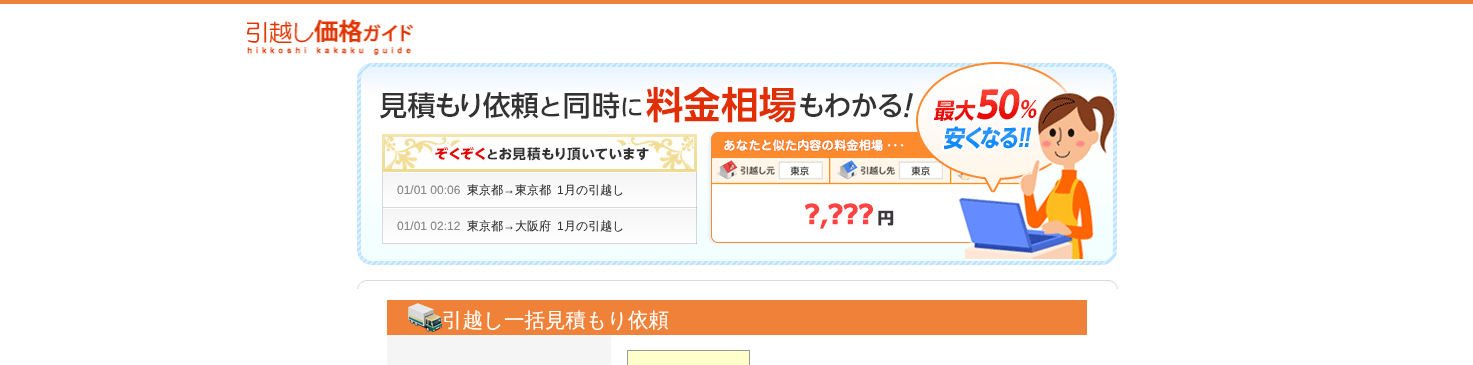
void draw(SkCanvas* canvas) {
	SkPaint paint;
	paint.setAntiAlias(true);
	canvas->clear(0xffffffff);
	paint.setColor(0xffef8138);
	canvas->drawRect(SkRect::MakeXYWH(0, 0, 1473, 4), paint);
	canvas->drawImageRect(SkImages::DeferredFromEncodedData(SkData::MakeFromFileName("img1.png")), SkRect::MakeXYWH(247, 19, 166, 36), SkSamplingOptions());
	canvas->drawImageRect(SkImages::DeferredFromEncodedData(SkData::MakeFromFileName("img2.png")), SkRect::MakeXYWH(357, 62, 760, 203), SkSamplingOptions());
	canvas->drawImageRect(SkImages::DeferredFromEncodedData(SkData::MakeFromFileName("img3.png")), SkRect::MakeXYWH(380, 84, 533, 39), SkSamplingOptions());
	canvas->drawImageRect(SkImages::DeferredFromEncodedData(SkData::MakeFromFileName("img4.png")), SkRect::MakeXYWH(382, 134, 315, 38), SkSamplingOptions());
	canvas->drawImageRect(SkImages::DeferredFromEncodedData(SkData::MakeFromFileName("img5.png")), SkRect::MakeXYWH(382, 172, 315, 36), SkSamplingOptions());
	SkFont f1(fontMgr->matchFamilyStyle("Liberation Sans", SkFontStyle::Normal()), 12);
	f1.setSubpixel(true);
	paint.setColor(0xff858585);
	canvas->drawString("01/01 00:06", 397, 194, f1, paint);
	SkFont f2(fontMgr->matchFamilyStyle("WenQuanYi Zen Hei", SkFontStyle(500, SkFontStyle::kNormal_Width, SkFontStyle::kUpright_Slant)), 12);
	f2.setSubpixel(true);
	paint.setColor(0xff333333);
	canvas->drawString("東京都", 467, 194, f2, paint);
	canvas->drawString("→", 503, 194, f1, paint);
	canvas->drawString("東京都", 515, 194, f2, paint);
	canvas->drawString("1", 557, 194, f1, paint);
	canvas->drawString("月の引越し", 564, 194, f2, paint);
	canvas->drawImageRect(SkImages::DeferredFromEncodedData(SkData::MakeFromFileName("img5.png")), SkRect::MakeXYWH(382, 208, 315, 36), SkSamplingOptions());
	paint.setColor(0xff858585);
	canvas->drawString("01/01 02:12", 397, 230, f1, paint);
	paint.setColor(0xff333333);
	canvas->drawString("東京都", 467, 230, f2, paint);
	canvas->drawString("→", 503, 230, f1, paint);
	canvas->drawString("大阪府", 515, 230, f2, paint);
	canvas->drawString("1", 557, 230, f1, paint);
	canvas->drawString("月の引越し", 564, 230, f2, paint);
	canvas->drawImageRect(SkImages::DeferredFromEncodedData(SkData::MakeFromFileName("img6.png")), SkRect::MakeXYWH(357, 280, 761, 9), SkSamplingOptions());
	paint.setColor(0xffef8138);
	canvas->drawRect(SkRect::MakeXYWH(387, 300, 700, 35), paint);
	canvas->drawImageRect(SkImages::DeferredFromEncodedData(SkData::MakeFromFileName("img7.png")), SkRect::MakeXYWH(408, 303, 34, 29), SkSamplingOptions());
	SkFont f3(fontMgr->matchFamilyStyle("WenQuanYi Zen Hei", SkFontStyle(500, SkFontStyle::kNormal_Width, SkFontStyle::kUpright_Slant)), 20.5);
	f3.setSubpixel(true);
	paint.setColor(0xffffffff);
	canvas->drawString("引越し一括見積もり依頼", 442, 327, f3, paint);
	paint.setColor(0xfff5f5f5);
	canvas->drawRect(SkRect::MakeXYWH(387, 335, 224, 30), paint);
	paint.setColor(0xffffffcc);
	canvas->drawRect(SkRect::MakeXYWH(627.5, 350.5, 122, 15), paint);
	paint.setStroke(true);
	paint.setStrokeWidth(1);
	paint.setColor(0xff999999);
	canvas->drawRect(SkRect::MakeXYWH(627.5, 350.5, 122, 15), paint);
}
